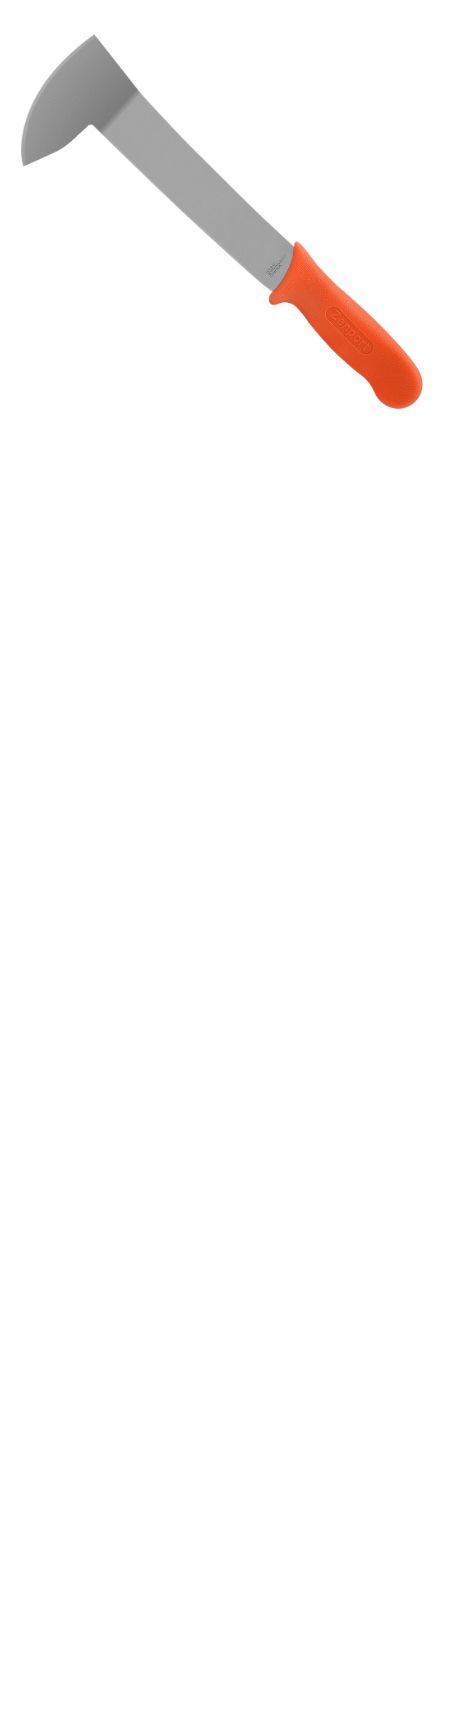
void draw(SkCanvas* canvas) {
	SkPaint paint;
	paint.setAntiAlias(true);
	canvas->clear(0xffffffff);
	canvas->drawImageRect(SkImages::DeferredFromEncodedData(SkData::MakeFromFileName("img1.png")), SkRect::MakeXYWH(21, 34, 402, 375), SkSamplingOptions());
}
